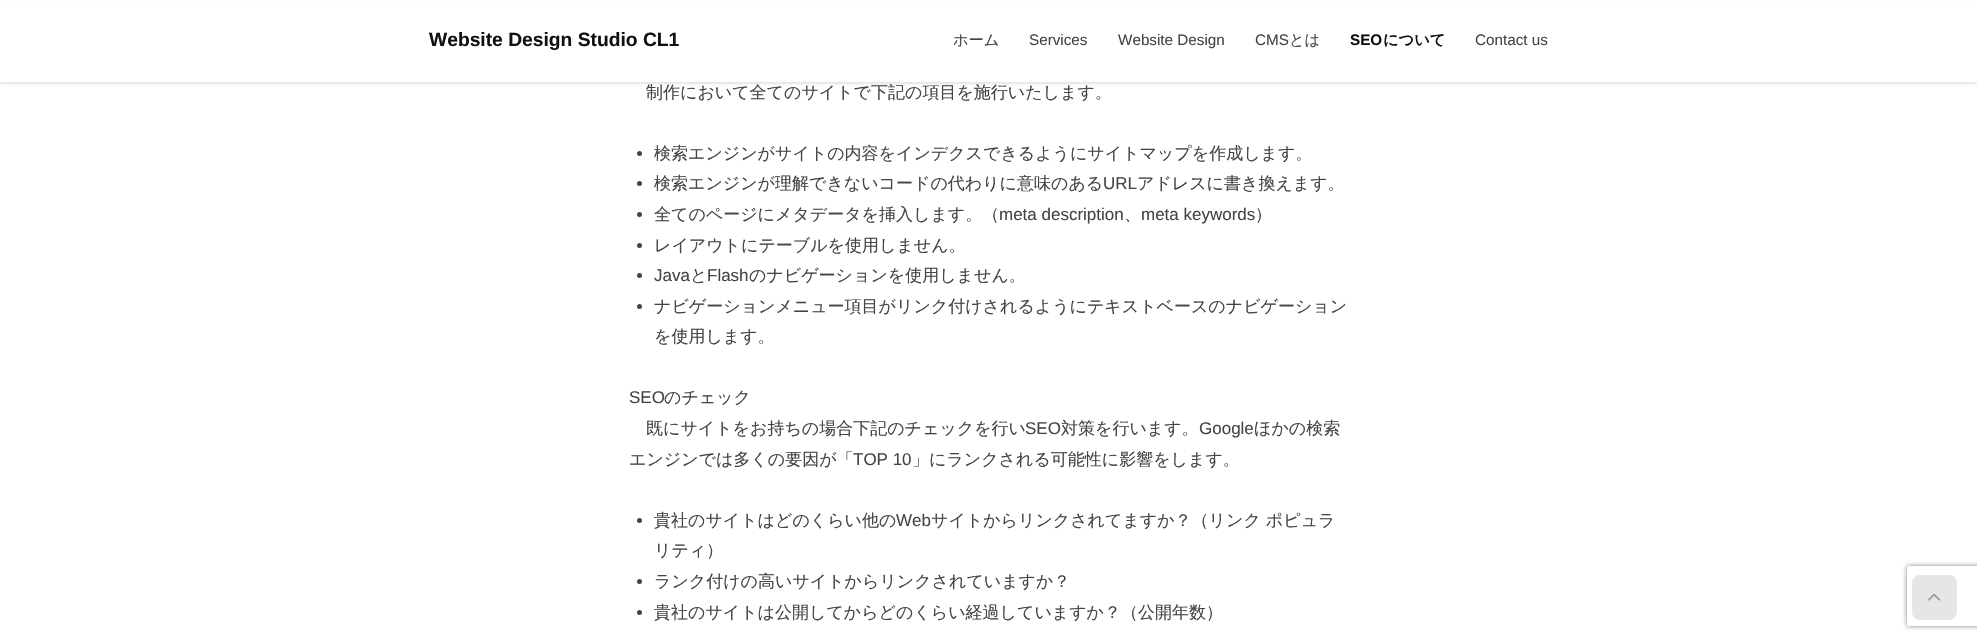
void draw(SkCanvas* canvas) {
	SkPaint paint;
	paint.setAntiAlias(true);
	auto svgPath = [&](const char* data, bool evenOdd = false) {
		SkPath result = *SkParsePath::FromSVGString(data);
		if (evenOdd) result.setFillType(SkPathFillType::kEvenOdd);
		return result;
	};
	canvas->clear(0xffffffff);
	paint.setColor(0x1a000000);
	paint.setMaskFilter(SkMaskFilter::MakeBlur(kNormal_SkBlurStyle, 1));
	canvas->drawRect(SkRect::MakeXYWH(0, 2, 1977, 82), paint);
	paint.setMaskFilter(nullptr);
	paint.setColor(0xffffffff);
	canvas->drawRect(SkRect::MakeXYWH(0, 1, 1977, 81), paint);
	SkFont f1(fontMgr->matchFamilyStyle("Liberation Sans", SkFontStyle::Bold()), 19.25);
	f1.setSubpixel(true);
	paint.setColor(0xff111111);
	canvas->drawString("Website Design Studio CL1", 429, 46, f1, paint);
	SkFont f2(fontMgr->matchFamilyStyle("WenQuanYi Zen Hei", SkFontStyle(500, SkFontStyle::kNormal_Width, SkFontStyle::kUpright_Slant)), 15.25);
	f2.setSubpixel(true);
	paint.setColor(0xff444444);
	canvas->drawString("ホーム", 953, 45, f2, paint);
	SkFont f3(fontMgr->matchFamilyStyle("Liberation Sans", SkFontStyle::Normal()), 15.25);
	f3.setSubpixel(true);
	canvas->drawString("Services", 1029, 45, f3, paint);
	canvas->drawString("Website Design", 1118, 45, f3, paint);
	canvas->drawString("CMS", 1255, 45, f3, paint);
	canvas->drawString("とは", 1289, 45, f2, paint);
	SkFont f4(fontMgr->matchFamilyStyle("Liberation Sans", SkFontStyle::Bold()), 15.25);
	f4.setSubpixel(true);
	paint.setColor(0xff111111);
	canvas->drawString("SEO", 1350, 45, f4, paint);
	SkFont f5(fontMgr->matchFamilyStyle("WenQuanYi Zen Hei", SkFontStyle::Bold()), 15.25);
	f5.setSubpixel(true);
	canvas->drawString("について", 1383, 45, f5, paint);
	paint.setColor(0xff444444);
	canvas->drawString("Contact us", 1475, 45, f3, paint);
	SkFont f6(fontMgr->matchFamilyStyle("WenQuanYi Zen Hei", SkFontStyle(500, SkFontStyle::kNormal_Width, SkFontStyle::kUpright_Slant)), 17);
	f6.setSubpixel(true);
	canvas->drawString("制作において全てのサイトで下記の項目を施行いたします。", 646, 98, f6, paint);
	canvas->drawCircle(639.5, 153.5, 2.5, paint);
	canvas->drawString("検索エンジンがサイトの内容をインデクスできるようにサイトマップを作成します。", 654, 159, f6, paint);
	canvas->drawCircle(639.5, 183.5, 2.5, paint);
	canvas->drawString("検索エンジンが理解できないコードの代わりに意味のある", 654, 189, f6, paint);
	SkFont f7(fontMgr->matchFamilyStyle("Liberation Sans", SkFontStyle::Normal()), 17);
	f7.setSubpixel(true);
	canvas->drawString("URL", 1103, 189, f7, paint);
	canvas->drawString("アドレスに書き換えます。", 1137, 189, f6, paint);
	canvas->drawCircle(639.5, 214.5, 2.5, paint);
	canvas->drawString("全てのページにメタデータを挿入します。（", 654, 220, f6, paint);
	canvas->drawString("meta description", 999, 220, f7, paint);
	canvas->drawString("meta keywords", 1141, 220, f7, paint);
	canvas->drawString("）", 1255, 220, f6, paint);
	canvas->drawString("、", 1124, 220, f6, paint);
	canvas->drawCircle(639.5, 245.5, 2.5, paint);
	canvas->drawString("レイアウトにテーブルを使用しません。", 654, 251, f6, paint);
	canvas->drawCircle(639.5, 275.5, 2.5, paint);
	canvas->drawString("Java", 654, 281, f7, paint);
	canvas->drawString("と", 690, 281, f6, paint);
	canvas->drawString("Flash", 707, 281, f7, paint);
	canvas->drawString("のナビゲーションを使用しません。", 749, 281, f6, paint);
	canvas->drawCircle(639.5, 306.5, 2.5, paint);
	canvas->drawString("ナビゲーションメニュー項目がリンク付けされるようにテキストベースのナビゲーション", 654, 312, f6, paint);
	canvas->drawString("を使用します。", 654, 342, f6, paint);
	canvas->drawString("SEO", 629, 403, f7, paint);
	canvas->drawString("のチェック", 664, 403, f6, paint);
	canvas->drawString("既にサイトをお持ちの場合下記のチェックを行い", 646, 434, f6, paint);
	canvas->drawString("SEO", 1025, 434, f7, paint);
	canvas->drawString("対策を行います。", 1061, 434, f6, paint);
	canvas->drawString("Google", 1199, 434, f7, paint);
	canvas->drawString("ほかの検索", 1254, 434, f6, paint);
	canvas->drawString("エンジンでは多くの要因が「", 629, 465, f6, paint);
	canvas->drawString("TOP 10", 853, 465, f7, paint);
	canvas->drawString("」にランクされる可能性に影響をします。", 912, 465, f6, paint);
	canvas->drawCircle(639.5, 520.5, 2.5, paint);
	canvas->drawString("貴社のサイトはどのくらい他の", 654, 526, f6, paint);
	canvas->drawString("Web", 896, 526, f7, paint);
	canvas->drawString("サイトからリンクされてますか？（リンク ポピュラ", 931, 526, f6, paint);
	canvas->drawString("リティ）", 654, 556, f6, paint);
	canvas->drawCircle(639.5, 581.5, 2.5, paint);
	canvas->drawString("ランク付けの高いサイトからリンクされていますか？", 654, 587, f6, paint);
	canvas->drawCircle(639.5, 612.5, 2.5, paint);
	canvas->drawString("貴社のサイトは公開してからどのくらい経過していますか？（公開年数）", 654, 618, f6, paint);
	canvas->save();
	canvas->clipPath(svgPath("M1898 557H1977V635H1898ZM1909 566H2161C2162 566 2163 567 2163 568V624C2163 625 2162 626 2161 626H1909C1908 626 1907 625 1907 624V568C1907 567 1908 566 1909 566Z", true), true);
	paint.setColor(0xff808080);
	paint.setMaskFilter(SkMaskFilter::MakeBlur(kNormal_SkBlurStyle, 2.5));
	canvas->drawRoundRect(SkRect::MakeXYWH(1907, 566, 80, 60), 2, 2, paint);
	paint.setMaskFilter(nullptr);
	canvas->restore();
	paint.setColor(0xffe6e6e6);
	canvas->drawRoundRect(SkRect::MakeXYWH(1912, 575, 45, 45), 8, 8, paint);
	canvas->drawImageRect(SkImages::DeferredFromEncodedData(SkData::MakeFromFileName("img1.png")), SkRect::MakeXYWH(1928, 593, 13, 8), SkSamplingOptions());
}
